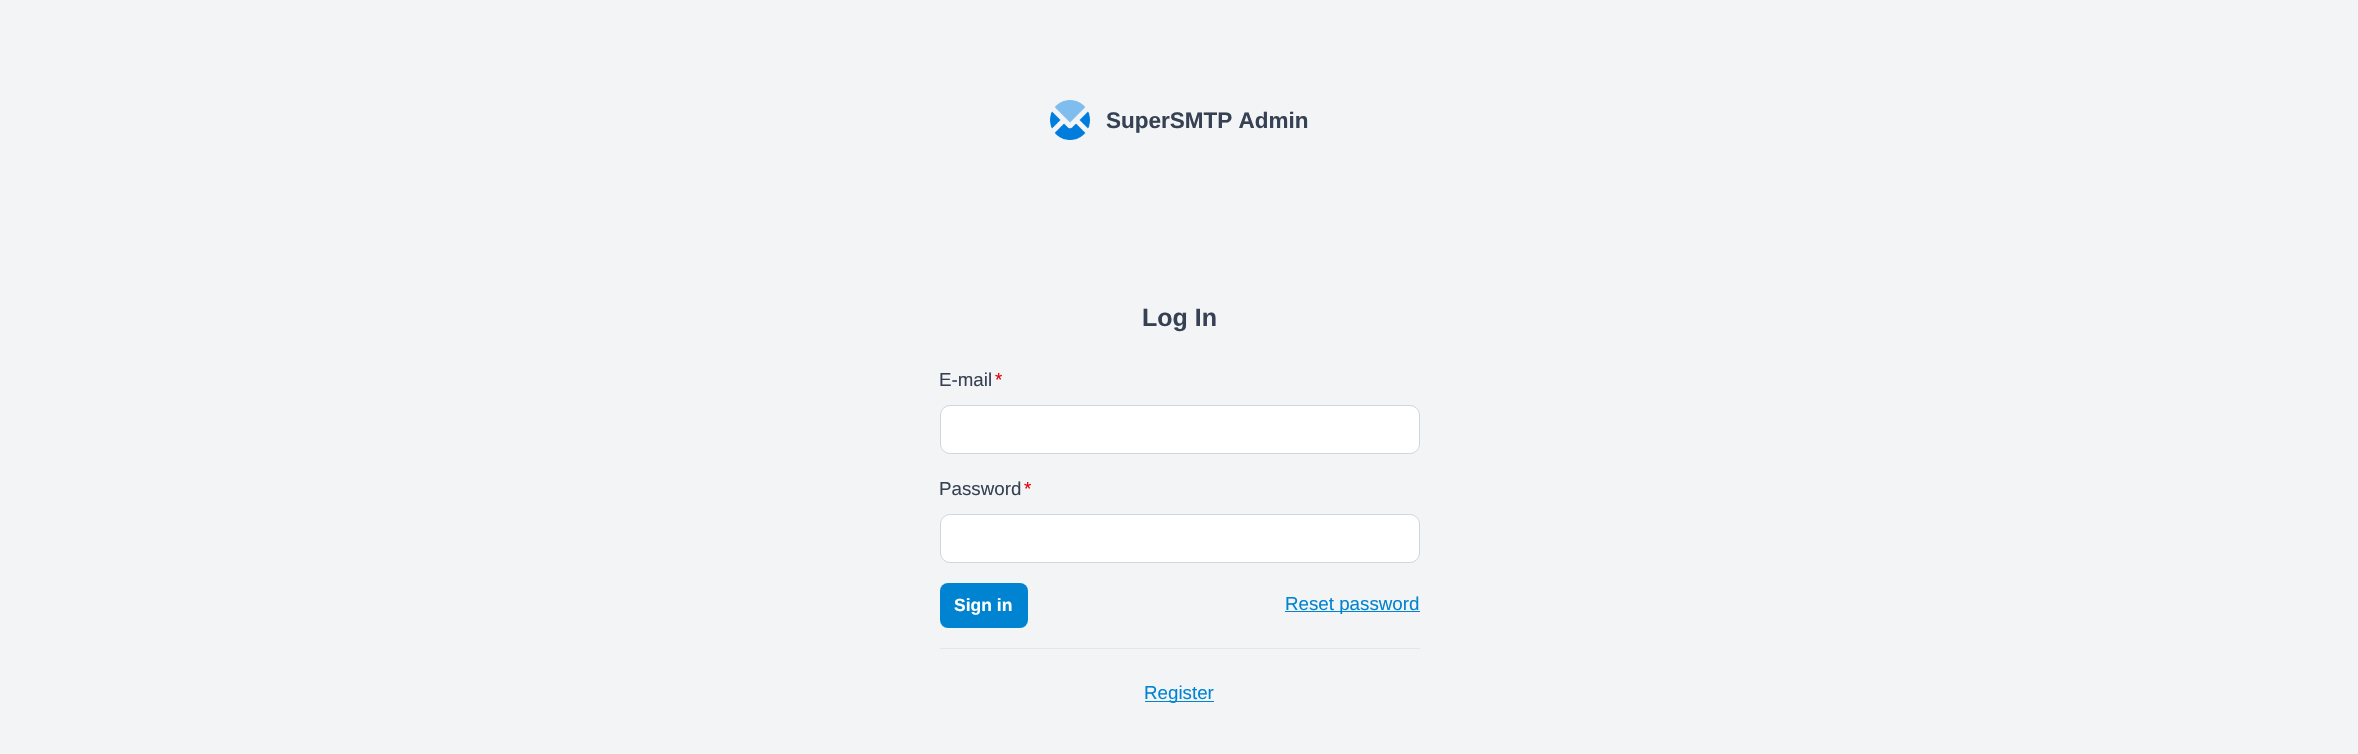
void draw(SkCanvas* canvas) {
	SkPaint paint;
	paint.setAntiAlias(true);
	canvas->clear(0xfff3f4f6);
	canvas->drawImageRect(SkImages::DeferredFromEncodedData(SkData::MakeFromFileName("img1.png")), SkRect::MakeXYWH(1050, 100, 40, 40), SkSamplingOptions());
	SkFont f1(fontMgr->matchFamilyStyle("Liberation Sans", SkFontStyle::Bold()), 22.5);
	f1.setSubpixel(true);
	paint.setColor(0xff364153);
	canvas->drawString("SuperSMTP Admin", 1106, 128, f1, paint);
	SkFont f2(fontMgr->matchFamilyStyle("Liberation Sans", SkFontStyle::Bold()), 25);
	f2.setSubpixel(true);
	canvas->drawString("Log In", 1142, 326, f2, paint);
	SkFont f3(fontMgr->matchFamilyStyle("Liberation Sans", SkFontStyle::Normal()), 18.75);
	f3.setSubpixel(true);
	canvas->drawString("E-mail", 939, 386, f3, paint);
	paint.setColor(0xffe7000b);
	canvas->drawString("*", 995, 386, f3, paint);
	paint.setColor(0xffffffff);
	canvas->drawRoundRect(SkRect::MakeXYWH(940.5, 405.5, 479, 48), 9.5, 9.5, paint);
	paint.setStroke(true);
	paint.setStrokeWidth(1);
	paint.setColor(0xffd1d5dc);
	canvas->drawRoundRect(SkRect::MakeXYWH(940.5, 405.5, 479, 48), 9.5, 9.5, paint);
	paint.setStroke(false);
	paint.setColor(0xff364153);
	canvas->drawString("Password", 939, 495, f3, paint);
	paint.setColor(0xffe7000b);
	canvas->drawString("*", 1024, 495, f3, paint);
	paint.setColor(0xffffffff);
	canvas->drawRoundRect(SkRect::MakeXYWH(940.5, 514.5, 479, 48), 9.5, 9.5, paint);
	paint.setStroke(true);
	paint.setColor(0xffd1d5dc);
	canvas->drawRoundRect(SkRect::MakeXYWH(940.5, 514.5, 479, 48), 9.5, 9.5, paint);
	paint.setStroke(false);
	paint.setColor(0xff0084d1);
	canvas->drawRoundRect(SkRect::MakeXYWH(940, 583, 88, 45), 8, 8, paint);
	SkFont f4(fontMgr->matchFamilyStyle("Liberation Sans", SkFontStyle::Bold()), 17.5);
	f4.setSubpixel(true);
	paint.setColor(0xffffffff);
	canvas->drawString("Sign in", 954, 611, f4, paint);
	paint.setColor(0xff0084d1);
	canvas->drawRect(SkRect::MakeXYWH(1285, 611, 135, 1), paint);
	canvas->drawString("Reset password", 1285, 610, f3, paint);
	paint.setColor(0xffe5e5e5);
	canvas->drawRect(SkRect::MakeXYWH(940, 648, 480, 1), paint);
	paint.setColor(0xff0084d1);
	canvas->drawRect(SkRect::MakeXYWH(1145, 701, 69, 1), paint);
	canvas->drawString("Register", 1144, 699, f3, paint);
}
